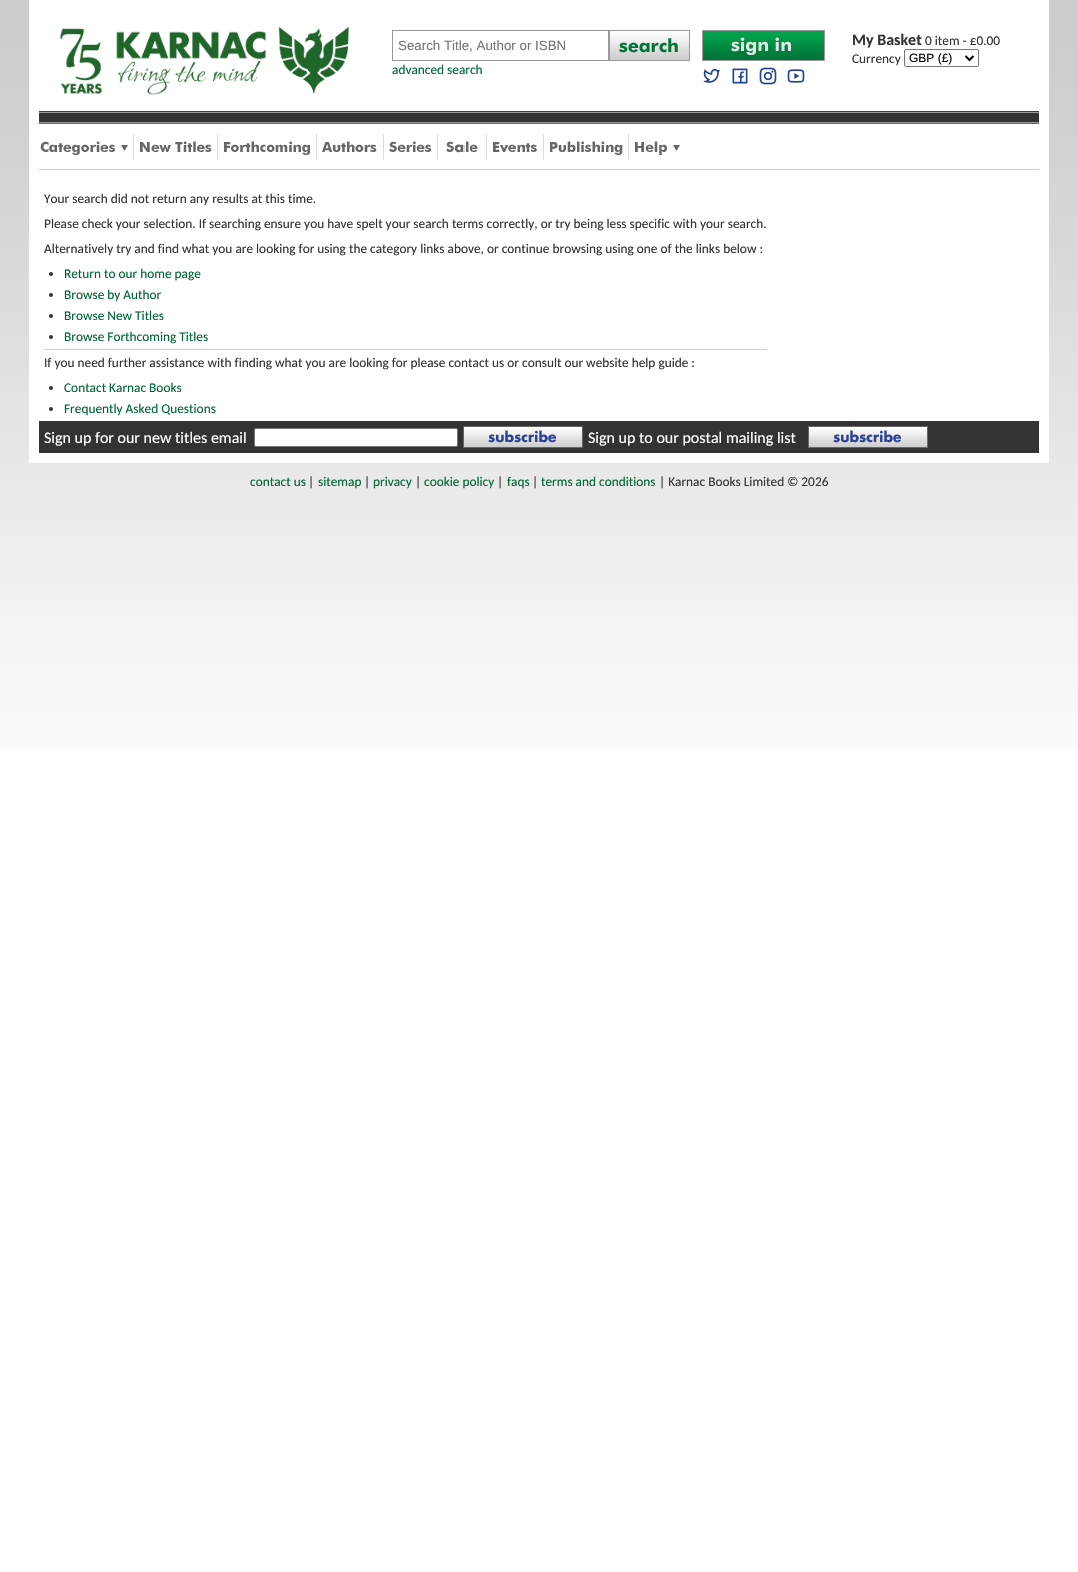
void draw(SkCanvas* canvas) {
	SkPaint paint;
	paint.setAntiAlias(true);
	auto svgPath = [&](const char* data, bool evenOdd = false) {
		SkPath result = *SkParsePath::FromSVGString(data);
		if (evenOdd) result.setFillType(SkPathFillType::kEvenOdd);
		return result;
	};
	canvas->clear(0xffffffff);
	canvas->drawImageRect(SkImages::DeferredFromEncodedData(SkData::MakeFromFileName("img1.png")), SkRect::MakeXYWH(0, 0, 1078, 749), SkSamplingOptions());
	paint.setColor(0xffffffff);
	canvas->drawRect(SkRect::MakeXYWH(29, 0, 1020, 463), paint);
	canvas->drawImageRect(SkImages::DeferredFromEncodedData(SkData::MakeFromFileName("img2.png")), SkRect::MakeXYWH(59, 26, 290, 69), SkSamplingOptions());
	paint.setStroke(true);
	paint.setStrokeWidth(1);
	paint.setColor(0xff999999);
	canvas->drawRect(SkRect::MakeXYWH(392.5, 30.5, 216, 30), paint);
	SkFont f1(fontMgr->matchFamilyStyle("Liberation Sans", SkFontStyle::Normal()), 13.33);
	f1.setSubpixel(true);
	paint.setStroke(false);
	paint.setColor(0xff757575);
	canvas->drawString("Search Title, Author or ISBN", 398, 50, f1, paint);
	canvas->drawImageRect(SkImages::DeferredFromEncodedData(SkData::MakeFromFileName("img3.png")), SkRect::MakeXYWH(609, 30, 81, 31), SkSamplingOptions());
	SkFont f2(fontMgr->matchFamilyStyle("Carlito", SkFontStyle::Normal()), 13.33);
	f2.setSubpixel(true);
	paint.setColor(0xff006633);
	canvas->drawString("advanced search", 392, 74, f2, paint);
	canvas->drawImageRect(SkImages::DeferredFromEncodedData(SkData::MakeFromFileName("img4.png")), SkRect::MakeXYWH(702, 30, 123, 31), SkSamplingOptions());
	canvas->drawImageRect(SkImages::DeferredFromEncodedData(SkData::MakeFromFileName("img5.png")), SkRect::MakeXYWH(703, 69, 17, 14), SkSamplingOptions());
	canvas->drawImageRect(SkImages::DeferredFromEncodedData(SkData::MakeFromFileName("img6.png")), SkRect::MakeXYWH(732, 68, 16, 16), SkSamplingOptions());
	canvas->drawImageRect(SkImages::DeferredFromEncodedData(SkData::MakeFromFileName("img7.png")), SkRect::MakeXYWH(759, 67, 18, 18), SkSamplingOptions());
	canvas->drawImageRect(SkImages::DeferredFromEncodedData(SkData::MakeFromFileName("img8.png")), SkRect::MakeXYWH(787, 69, 18, 14), SkSamplingOptions());
	SkFont f3(fontMgr->matchFamilyStyle("Carlito", SkFontStyle::Bold()), 16);
	f3.setSubpixel(true);
	paint.setColor(0xff333333);
	canvas->drawString("My Basket", 852, 45, f3, paint);
	canvas->drawString("0 item - £0.00", 925, 45, f2, paint);
	canvas->drawString("Currency", 852, 63, f2, paint);
	paint.setStroke(true);
	paint.setColor(0xff767676);
	canvas->drawRoundRect(SkRect::MakeXYWH(904.5, 49.5, 74, 17), 1.5, 1.5, paint);
	paint.setStrokeWidth(2);
	paint.setColor(0xff000000);
	canvas->drawPath(svgPath("M965.5 56L969.5 60L973.5 56"), paint);
	SkFont f4(fontMgr->matchFamilyStyle("Liberation Sans", SkFontStyle::Normal()), 12);
	f4.setSubpixel(true);
	paint.setStroke(false);
	canvas->drawString("GBP (£)", 909, 62, f4, paint);
	canvas->drawImageRect(SkImages::DeferredFromEncodedData(SkData::MakeFromFileName("img9.png")), SkRect::MakeXYWH(39, 111, 1000, 13), SkSamplingOptions());
	paint.setColor(0xffcccccc);
	canvas->drawRect(SkRect::MakeXYWH(39, 169, 1000, 1), paint);
	canvas->drawImageRect(SkImages::DeferredFromEncodedData(SkData::MakeFromFileName("img10.png")), SkRect::MakeXYWH(40, 141, 88, 14), SkSamplingOptions());
	canvas->drawImageRect(SkImages::DeferredFromEncodedData(SkData::MakeFromFileName("img11.png")), SkRect::MakeXYWH(133, 133, 1, 27), SkSamplingOptions());
	canvas->drawImageRect(SkImages::DeferredFromEncodedData(SkData::MakeFromFileName("img12.png")), SkRect::MakeXYWH(140, 141, 72, 11), SkSamplingOptions());
	canvas->drawImageRect(SkImages::DeferredFromEncodedData(SkData::MakeFromFileName("img11.png")), SkRect::MakeXYWH(217, 133, 1, 27), SkSamplingOptions());
	canvas->drawImageRect(SkImages::DeferredFromEncodedData(SkData::MakeFromFileName("img13.png")), SkRect::MakeXYWH(224, 141, 86, 14), SkSamplingOptions());
	canvas->drawImageRect(SkImages::DeferredFromEncodedData(SkData::MakeFromFileName("img11.png")), SkRect::MakeXYWH(316, 133, 1, 27), SkSamplingOptions());
	canvas->drawImageRect(SkImages::DeferredFromEncodedData(SkData::MakeFromFileName("img14.png")), SkRect::MakeXYWH(322, 141, 55, 11), SkSamplingOptions());
	canvas->drawImageRect(SkImages::DeferredFromEncodedData(SkData::MakeFromFileName("img11.png")), SkRect::MakeXYWH(383, 133, 1, 27), SkSamplingOptions());
	canvas->drawImageRect(SkImages::DeferredFromEncodedData(SkData::MakeFromFileName("img15.png")), SkRect::MakeXYWH(389, 141, 42, 11), SkSamplingOptions());
	canvas->drawImageRect(SkImages::DeferredFromEncodedData(SkData::MakeFromFileName("img11.png")), SkRect::MakeXYWH(437, 133, 1, 27), SkSamplingOptions());
	canvas->drawImageRect(SkImages::DeferredFromEncodedData(SkData::MakeFromFileName("img16.png")), SkRect::MakeXYWH(446, 141, 32, 12), SkSamplingOptions());
	canvas->drawImageRect(SkImages::DeferredFromEncodedData(SkData::MakeFromFileName("img11.png")), SkRect::MakeXYWH(486, 133, 1, 27), SkSamplingOptions());
	canvas->drawImageRect(SkImages::DeferredFromEncodedData(SkData::MakeFromFileName("img17.png")), SkRect::MakeXYWH(493, 142, 44, 10), SkSamplingOptions());
	canvas->drawImageRect(SkImages::DeferredFromEncodedData(SkData::MakeFromFileName("img11.png")), SkRect::MakeXYWH(543, 133, 1, 27), SkSamplingOptions());
	canvas->drawImageRect(SkImages::DeferredFromEncodedData(SkData::MakeFromFileName("img18.png")), SkRect::MakeXYWH(550, 141, 73, 14), SkSamplingOptions());
	canvas->drawImageRect(SkImages::DeferredFromEncodedData(SkData::MakeFromFileName("img11.png")), SkRect::MakeXYWH(628, 133, 1, 27), SkSamplingOptions());
	canvas->drawImageRect(SkImages::DeferredFromEncodedData(SkData::MakeFromFileName("img19.png")), SkRect::MakeXYWH(635, 141, 45, 14), SkSamplingOptions());
	paint.setColor(0xff333333);
	canvas->drawString("Your search did not return any results at this time.", 44, 203, f2, paint);
	canvas->drawString("Please check your selection. If searching ensure you have spelt your search terms correctly, or try being less specific with your search.", 44, 228, f2, paint);
	canvas->drawString("Alternatively try and find what you are looking for using the category links above, or continue browsing using one of the links below :", 44, 253, f2, paint);
	canvas->drawCircle(51, 274, 2, paint);
	paint.setColor(0xff006633);
	canvas->drawString("Return to our home page", 64, 278, f2, paint);
	paint.setColor(0xff333333);
	canvas->drawCircle(51, 295, 2, paint);
	paint.setColor(0xff006633);
	canvas->drawString("Browse by Author", 64, 299, f2, paint);
	paint.setColor(0xff333333);
	canvas->drawCircle(51, 316, 2, paint);
	paint.setColor(0xff006633);
	canvas->drawString("Browse New Titles", 64, 320, f2, paint);
	paint.setColor(0xff333333);
	canvas->drawCircle(51, 337, 2, paint);
	paint.setColor(0xff006633);
	canvas->drawString("Browse Forthcoming Titles", 64, 341, f2, paint);
	paint.setColor(0xffcccccc);
	canvas->drawRect(SkRect::MakeXYWH(44, 349, 723, 1), paint);
	paint.setColor(0xff333333);
	canvas->drawString("If you need further assistance with finding what you are looking for please contact us or consult our website help guide :", 44, 367, f2, paint);
	canvas->drawCircle(51, 388, 2, paint);
	paint.setColor(0xff006633);
	canvas->drawString("Contact Karnac Books", 64, 392, f2, paint);
	paint.setColor(0xff333333);
	canvas->drawCircle(51, 409, 2, paint);
	paint.setColor(0xff006633);
	canvas->drawString("Frequently Asked Questions", 64, 413, f2, paint);
	paint.setColor(0xff333333);
	canvas->drawRect(SkRect::MakeXYWH(39, 421, 1000, 32), paint);
	SkFont f5(fontMgr->matchFamilyStyle("Carlito", SkFontStyle::Normal()), 16);
	f5.setSubpixel(true);
	paint.setColor(0xffffffff);
	canvas->drawString("Sign up for our new titles email", 44, 443, f5, paint);
	canvas->drawRoundRect(SkRect::MakeXYWH(254.5, 428.5, 203, 18), 1.5, 1.5, paint);
	paint.setStroke(true);
	paint.setStrokeWidth(1);
	paint.setColor(0xff767676);
	canvas->drawRoundRect(SkRect::MakeXYWH(254.5, 428.5, 203, 18), 1.5, 1.5, paint);
	canvas->drawImageRect(SkImages::DeferredFromEncodedData(SkData::MakeFromFileName("img20.png")), SkRect::MakeXYWH(463, 426, 120, 22), SkSamplingOptions());
	paint.setStroke(false);
	paint.setColor(0xffffffff);
	canvas->drawString("Sign up to our postal mailing list", 588, 443, f5, paint);
	canvas->drawImageRect(SkImages::DeferredFromEncodedData(SkData::MakeFromFileName("img20.png")), SkRect::MakeXYWH(808, 426, 120, 22), SkSamplingOptions());
	paint.setColor(0xff006633);
	canvas->drawString("contact us", 250, 486, f2, paint);
	paint.setColor(0xff333333);
	canvas->drawString("|", 308, 486, f2, paint);
	paint.setColor(0xff006633);
	canvas->drawString("sitemap", 318, 486, f2, paint);
	paint.setColor(0xff333333);
	canvas->drawString("|", 364, 486, f2, paint);
	paint.setColor(0xff006633);
	canvas->drawString("privacy", 373, 486, f2, paint);
	paint.setColor(0xff333333);
	canvas->drawString("|", 415, 486, f2, paint);
	paint.setColor(0xff006633);
	canvas->drawString("cookie policy", 424, 486, f2, paint);
	paint.setColor(0xff333333);
	canvas->drawString("|", 497, 486, f2, paint);
	paint.setColor(0xff006633);
	canvas->drawString("faqs", 507, 486, f2, paint);
	paint.setColor(0xff333333);
	canvas->drawString("|", 532, 486, f2, paint);
	paint.setColor(0xff006633);
	canvas->drawString("terms and conditions", 541, 486, f2, paint);
	paint.setColor(0xff333333);
	canvas->drawString("| Karnac Books Limited © 2026", 659, 486, f2, paint);
}
